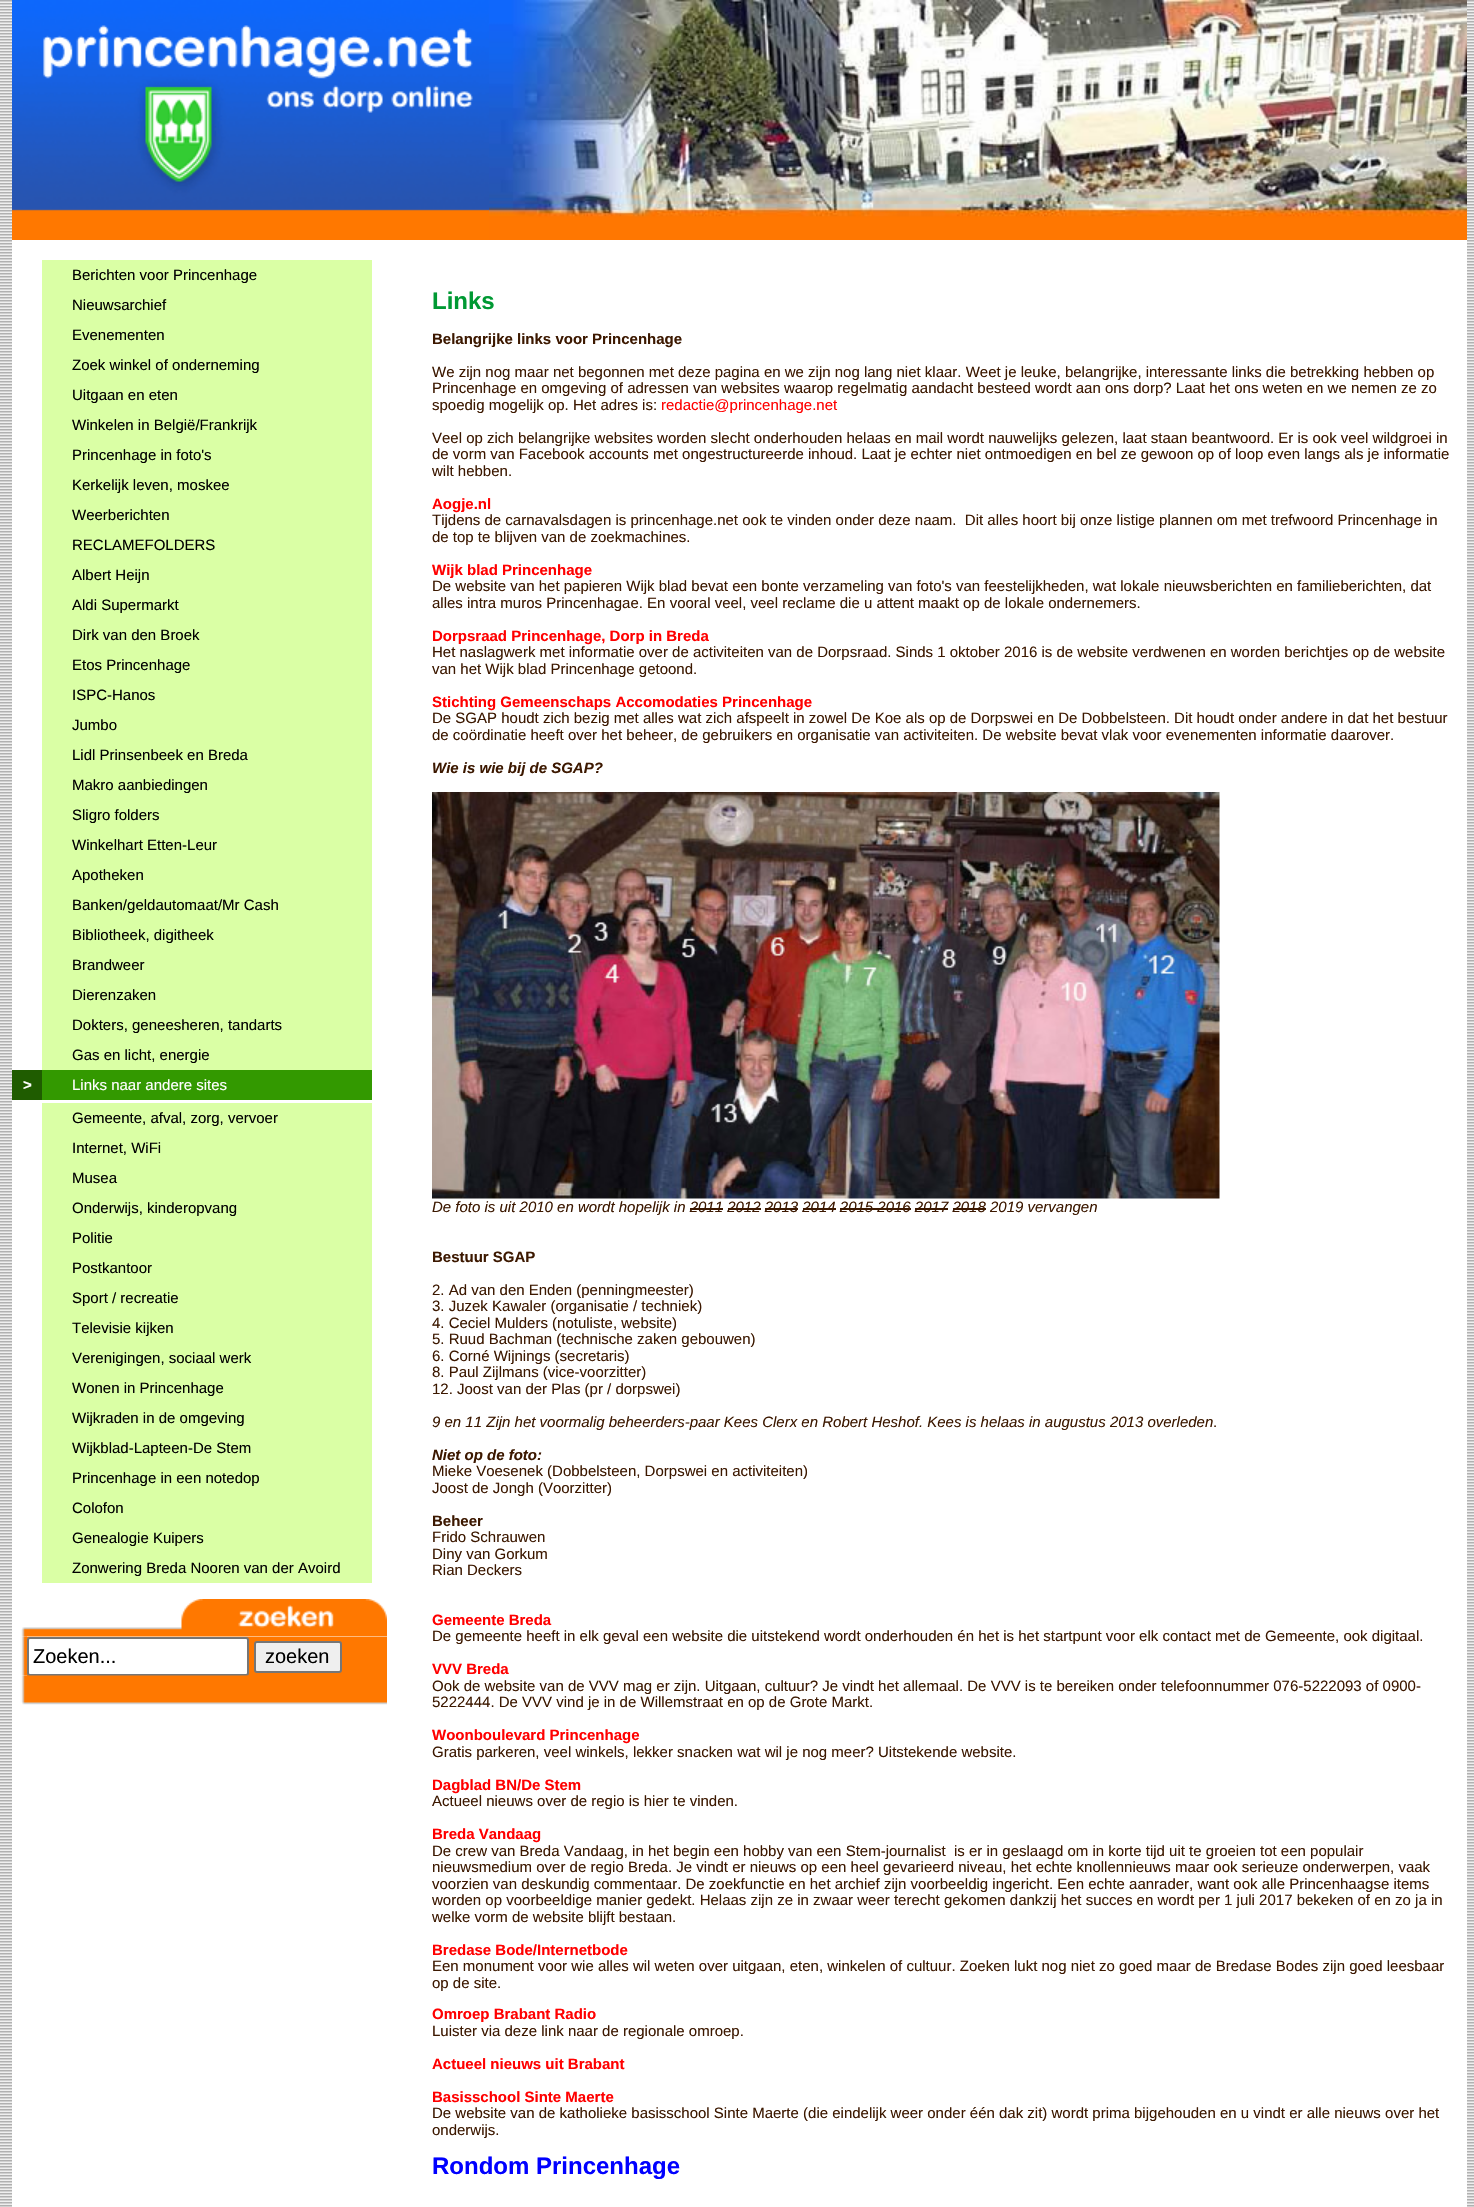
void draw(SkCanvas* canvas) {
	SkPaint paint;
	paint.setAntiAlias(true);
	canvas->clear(0xffffffff);
	canvas->drawImageRect(SkImages::DeferredFromEncodedData(SkData::MakeFromFileName("img1.png")), SkRect::MakeXYWH(0, 0, 1474, 2207), SkSamplingOptions());
	paint.setColor(0xffffffff);
	canvas->drawRect(SkRect::MakeXYWH(12, 240, 1455, 1967), paint);
	canvas->drawImageRect(SkImages::DeferredFromEncodedData(SkData::MakeFromFileName("img2.png")), SkRect::MakeXYWH(12, 0, 477, 240), SkSamplingOptions());
	canvas->drawImageRect(SkImages::DeferredFromEncodedData(SkData::MakeFromFileName("img3.png")), SkRect::MakeXYWH(489, 0, 978, 240), SkSamplingOptions());
	paint.setColor(0xffdaffa5);
	canvas->drawRect(SkRect::MakeXYWH(42, 260, 330, 810), paint);
	SkFont f1(fontMgr->matchFamilyStyle("Liberation Sans", SkFontStyle::Normal()), 15);
	f1.setSubpixel(true);
	paint.setColor(0xff000000);
	canvas->drawString("Berichten voor Princenhage", 72, 280, f1, paint);
	canvas->drawString("Nieuwsarchief", 72, 310, f1, paint);
	canvas->drawString("Evenementen", 72, 340, f1, paint);
	canvas->drawString("Zoek winkel of onderneming", 72, 370, f1, paint);
	canvas->drawString("Uitgaan en eten", 72, 400, f1, paint);
	canvas->drawString("Winkelen in België/Frankrijk", 72, 430, f1, paint);
	canvas->drawString("Princenhage in foto's", 72, 460, f1, paint);
	canvas->drawString("Kerkelijk leven, moskee", 72, 490, f1, paint);
	canvas->drawString("Weerberichten", 72, 520, f1, paint);
	canvas->drawString("RECLAMEFOLDERS", 72, 550, f1, paint);
	canvas->drawString("Albert Heijn", 72, 580, f1, paint);
	canvas->drawString("Aldi Supermarkt", 72, 610, f1, paint);
	canvas->drawString("Dirk van den Broek", 72, 640, f1, paint);
	canvas->drawString("Etos Princenhage", 72, 670, f1, paint);
	canvas->drawString("ISPC-Hanos", 72, 700, f1, paint);
	canvas->drawString("Jumbo", 72, 730, f1, paint);
	canvas->drawString("Lidl Prinsenbeek en Breda", 72, 760, f1, paint);
	canvas->drawString("Makro aanbiedingen", 72, 790, f1, paint);
	canvas->drawString("Sligro folders", 72, 820, f1, paint);
	canvas->drawString("Winkelhart Etten-Leur", 72, 850, f1, paint);
	canvas->drawString("Apotheken", 72, 880, f1, paint);
	canvas->drawString("Banken/geldautomaat/Mr Cash", 72, 910, f1, paint);
	canvas->drawString("Bibliotheek, digitheek", 72, 940, f1, paint);
	canvas->drawString("Brandweer", 72, 970, f1, paint);
	canvas->drawString("Dierenzaken", 72, 1000, f1, paint);
	canvas->drawString("Dokters, geneesheren, tandarts", 72, 1030, f1, paint);
	canvas->drawString("Gas en licht, energie", 72, 1060, f1, paint);
	paint.setColor(0xff339900);
	canvas->drawRect(SkRect::MakeXYWH(42, 1070, 330, 30), paint);
	paint.setColor(0xff1f5c00);
	canvas->drawRect(SkRect::MakeXYWH(12, 1070, 30, 30), paint);
	SkFont f2(fontMgr->matchFamilyStyle("Liberation Sans", SkFontStyle::Bold()), 15);
	f2.setSubpixel(true);
	paint.setColor(0xffffffff);
	canvas->drawString(">", 23, 1090, f2, paint);
	canvas->drawString("Links naar andere sites", 72, 1090, f1, paint);
	paint.setColor(0xffdaffa5);
	canvas->drawRect(SkRect::MakeXYWH(42, 1103, 330, 480), paint);
	paint.setColor(0xff000000);
	canvas->drawString("Gemeente, afval, zorg, vervoer", 72, 1123, f1, paint);
	canvas->drawString("Internet, WiFi", 72, 1153, f1, paint);
	canvas->drawString("Musea", 72, 1183, f1, paint);
	canvas->drawString("Onderwijs, kinderopvang", 72, 1213, f1, paint);
	canvas->drawString("Politie", 72, 1243, f1, paint);
	canvas->drawString("Postkantoor", 72, 1273, f1, paint);
	canvas->drawString("Sport / recreatie", 72, 1303, f1, paint);
	canvas->drawString("Televisie kijken", 72, 1333, f1, paint);
	canvas->drawString("Verenigingen, sociaal werk", 72, 1363, f1, paint);
	canvas->drawString("Wonen in Princenhage", 72, 1393, f1, paint);
	canvas->drawString("Wijkraden in de omgeving", 72, 1423, f1, paint);
	canvas->drawString("Wijkblad-Lapteen-De Stem", 72, 1453, f1, paint);
	canvas->drawString("Princenhage in een notedop", 72, 1483, f1, paint);
	canvas->drawString("Colofon", 72, 1513, f1, paint);
	canvas->drawString("Genealogie Kuipers", 72, 1543, f1, paint);
	canvas->drawString("Zonwering Breda Nooren van der Avoird", 72, 1573, f1, paint);
	canvas->drawImageRect(SkImages::DeferredFromEncodedData(SkData::MakeFromFileName("img5.png")), SkRect::MakeXYWH(12, 1636, 15, 40), SkSamplingOptions());
	canvas->drawImageRect(SkImages::DeferredFromEncodedData(SkData::MakeFromFileName("img4.png")), SkRect::MakeXYWH(21, 1599, 366, 38), SkSamplingOptions());
	paint.setColor(0xffff7800);
	canvas->drawRect(SkRect::MakeXYWH(27, 1637, 360, 39), paint);
	paint.setColor(0xffffffff);
	canvas->drawRoundRect(SkRect::MakeXYWH(28, 1638, 220, 37), 2, 2, paint);
	paint.setStroke(true);
	paint.setStrokeWidth(2);
	paint.setColor(0xff767676);
	canvas->drawRoundRect(SkRect::MakeXYWH(28, 1638, 220, 37), 2, 2, paint);
	SkFont f3(fontMgr->matchFamilyStyle("Liberation Sans", SkFontStyle::Normal()), 20);
	f3.setSubpixel(true);
	paint.setStroke(false);
	paint.setColor(0xff000000);
	canvas->drawString("Zoeken...", 33, 1663, f3, paint);
	paint.setColor(0xffefefef);
	canvas->drawRoundRect(SkRect::MakeXYWH(255, 1642, 86, 30), 2, 2, paint);
	paint.setStroke(true);
	paint.setColor(0xff767676);
	canvas->drawRoundRect(SkRect::MakeXYWH(255, 1642, 86, 30), 2, 2, paint);
	paint.setStroke(false);
	paint.setColor(0xff000000);
	canvas->drawString("zoeken", 265, 1663, f3, paint);
	canvas->drawImageRect(SkImages::DeferredFromEncodedData(SkData::MakeFromFileName("img6.png")), SkRect::MakeXYWH(12, 1675, 375, 30), SkSamplingOptions());
	SkFont f4(fontMgr->matchFamilyStyle("Liberation Sans", SkFontStyle::Bold()), 24);
	f4.setSubpixel(true);
	paint.setColor(0xff009933);
	canvas->drawString("Links", 432, 309, f4, paint);
	paint.setColor(0xff3c1800);
	canvas->drawString("Belangrijke links voor Princenhage", 432, 344, f2, paint);
	canvas->drawString("We zijn nog maar net begonnen met deze pagina en we zijn nog lang niet klaar. Weet je leuke, belangrijke, interessante links die betrekking hebben op", 432, 377, f1, paint);
	canvas->drawString("Princenhage en omgeving of adressen van websites waarop regelmatig aandacht besteed wordt aan ons dorp? Laat het ons weten en we nemen ze zo", 432, 393, f1, paint);
	canvas->drawString("spoedig mogelijk op. Het adres is:", 432, 410, f1, paint);
	paint.setColor(0xffff0000);
	canvas->drawString("redactie@princenhage.net", 661, 410, f1, paint);
	paint.setColor(0xff3c1800);
	canvas->drawString("Veel op zich belangrijke websites worden slecht onderhouden helaas en mail wordt nauwelijks gelezen, laat staan beantwoord. Er is ook veel wildgroei in", 432, 443, f1, paint);
	canvas->drawString("de vorm van Facebook accounts met ongestructureerde inhoud. Laat je echter niet ontmoedigen en bel ze gewoon op of loop even langs als je informatie", 432, 459, f1, paint);
	canvas->drawString("wilt hebben.", 432, 476, f1, paint);
	paint.setColor(0xffff0000);
	canvas->drawString("Aogje.nl", 432, 509, f2, paint);
	paint.setColor(0xff3c1800);
	canvas->drawString("Tijdens de carnavalsdagen is princenhage.net ook te vinden onder deze naam.  Dit alles hoort bij onze listige plannen om met trefwoord Princenhage in", 432, 525, f1, paint);
	canvas->drawString("de top te blijven van de zoekmachines.", 432, 542, f1, paint);
	paint.setColor(0xffff0000);
	canvas->drawString("Wijk blad Princenhage", 432, 575, f2, paint);
	paint.setColor(0xff3c1800);
	canvas->drawString("De website van het papieren Wijk blad bevat een bonte verzameling van foto's van feestelijkheden, wat lokale nieuwsberichten en familieberichten, dat", 432, 591, f1, paint);
	canvas->drawString("alles intra muros Princenhagae. En vooral veel, veel reclame die u attent maakt op de lokale ondernemers.", 432, 608, f1, paint);
	paint.setColor(0xffff0000);
	canvas->drawString("Dorpsraad Princenhage, Dorp in Breda", 432, 641, f2, paint);
	paint.setColor(0xff3c1800);
	canvas->drawString("Het naslagwerk met informatie over de activiteiten van de Dorpsraad. Sinds 1 oktober 2016 is de website verdwenen en worden berichtjes op de website", 432, 657, f1, paint);
	canvas->drawString("van het Wijk blad Princenhage getoond.", 432, 674, f1, paint);
	paint.setColor(0xffff0000);
	canvas->drawString("Stichting Gemeenschaps Accomodaties Princenhage", 432, 707, f2, paint);
	paint.setColor(0xff3c1800);
	canvas->drawString("De SGAP houdt zich bezig met alles wat zich afspeelt in zowel De Koe als op de Dorpswei en De Dobbelsteen. Dit houdt onder andere in dat het bestuur", 432, 723, f1, paint);
	canvas->drawString("de coördinatie heeft over het beheer, de gebruikers en organisatie van activiteiten. De website bevat vlak voor evenementen informatie daarover.", 432, 740, f1, paint);
	SkFont f5(fontMgr->matchFamilyStyle("Liberation Sans", SkFontStyle::BoldItalic()), 15);
	f5.setSubpixel(true);
	canvas->drawString("Wie is wie bij de SGAP?", 432, 773, f5, paint);
	canvas->drawImageRect(SkImages::DeferredFromEncodedData(SkData::MakeFromFileName("img7.png")), SkRect::MakeXYWH(432, 792, 788, 407), SkSamplingOptions());
	SkFont f6(fontMgr->matchFamilyStyle("Liberation Sans", SkFontStyle::Italic()), 15);
	f6.setSubpixel(true);
	canvas->drawString("De foto is uit 2010 en wordt hopelijk in 2011 2012 2013 2014 2015 2016 2017 2018 2019 vervangen", 432, 1212, f6, paint);
	canvas->drawRect(SkRect::MakeXYWH(690, 1208, 33, 2), paint);
	canvas->drawRect(SkRect::MakeXYWH(728, 1208, 33, 2), paint);
	canvas->drawRect(SkRect::MakeXYWH(765, 1208, 33, 2), paint);
	canvas->drawRect(SkRect::MakeXYWH(803, 1208, 33, 2), paint);
	canvas->drawRect(SkRect::MakeXYWH(840, 1208, 71, 2), paint);
	canvas->drawRect(SkRect::MakeXYWH(915, 1208, 33, 2), paint);
	canvas->drawRect(SkRect::MakeXYWH(953, 1208, 33, 2), paint);
	canvas->drawString("Bestuur SGAP", 432, 1262, f2, paint);
	canvas->drawString("2. Ad van den Enden (penningmeester)", 432, 1295, f1, paint);
	canvas->drawString("3. Juzek Kawaler (organisatie / techniek)", 432, 1311, f1, paint);
	canvas->drawString("4. Ceciel Mulders (notuliste, website)", 432, 1328, f1, paint);
	canvas->drawString("5. Ruud Bachman (technische zaken gebouwen)", 432, 1344, f1, paint);
	canvas->drawString("6. Corné Wijnings (secretaris)", 432, 1361, f1, paint);
	canvas->drawString("8. Paul Zijlmans (vice-voorzitter)", 432, 1377, f1, paint);
	canvas->drawString("12. Joost van der Plas (pr / dorpswei)", 432, 1394, f1, paint);
	canvas->drawString("9 en 11 Zijn het voormalig beheerders-paar Kees Clerx en Robert Heshof. Kees is helaas in augustus 2013 overleden", 432, 1427, f6, paint);
	canvas->drawString(".", 1213, 1427, f1, paint);
	canvas->drawString("Niet op de foto:", 432, 1460, f5, paint);
	canvas->drawString("Mieke Voesenek (Dobbelsteen, Dorpswei en activiteiten)", 432, 1476, f1, paint);
	canvas->drawString("Joost de Jongh (Voorzitter)", 432, 1493, f1, paint);
	canvas->drawString("Beheer", 432, 1526, f2, paint);
	canvas->drawString("Frido Schrauwen", 432, 1542, f1, paint);
	canvas->drawString("Diny van Gorkum", 432, 1559, f1, paint);
	canvas->drawString("Rian Deckers", 432, 1575, f1, paint);
	paint.setColor(0xffff0000);
	canvas->drawString("Gemeente Breda", 432, 1625, f2, paint);
	paint.setColor(0xff3c1800);
	canvas->drawString("De gemeente heeft in elk geval een website die uitstekend wordt onderhouden én het is het startpunt voor elk contact met de Gemeente, ook digitaal.", 432, 1641, f1, paint);
	paint.setColor(0xffff0000);
	canvas->drawString("VVV Breda", 432, 1674, f2, paint);
	paint.setColor(0xff3c1800);
	canvas->drawString("Ook de website van de VVV mag er zijn. Uitgaan, cultuur? Je vindt het allemaal. De VVV is te bereiken onder telefoonnummer 076-5222093 of 0900-", 432, 1691, f1, paint);
	canvas->drawString("5222444. De VVV vind je in de Willemstraat en op de Grote Markt.", 432, 1707, f1, paint);
	paint.setColor(0xffff0000);
	canvas->drawString("Woonboulevard Princenhage", 432, 1740, f2, paint);
	paint.setColor(0xff3c1800);
	canvas->drawString("Gratis parkeren, veel winkels, lekker snacken wat wil je nog meer? Uitstekende website.", 432, 1757, f1, paint);
	paint.setColor(0xffff0000);
	canvas->drawString("Dagblad BN/De Stem", 432, 1790, f2, paint);
	paint.setColor(0xff3c1800);
	canvas->drawString("Actueel nieuws over de regio is hier te vinden.", 432, 1806, f1, paint);
	paint.setColor(0xffff0000);
	canvas->drawString("Breda Vandaag", 432, 1839, f2, paint);
	paint.setColor(0xff3c1800);
	canvas->drawString("De crew van Breda Vandaag, in het begin een hobby van een Stem-journalist  is er in geslaagd om in korte tijd uit te groeien tot een populair", 432, 1856, f1, paint);
	canvas->drawString("nieuwsmedium over de regio Breda. Je vindt er nieuws op een heel gevarieerd niveau, het echte knollennieuws maar ook serieuze onderwerpen, vaak", 432, 1872, f1, paint);
	canvas->drawString("voorzien van deskundig commentaar. De zoekfunctie en het archief zijn voorbeeldig ingericht. Een echte aanrader, want ook alle Princenhaagse items", 432, 1889, f1, paint);
	canvas->drawString("worden op voorbeeldige manier gedekt. Helaas zijn ze in zwaar weer terecht gekomen dankzij het succes en wordt per 1 juli 2017 bekeken of en zo ja in", 432, 1905, f1, paint);
	canvas->drawString("welke vorm de website blijft bestaan.", 432, 1922, f1, paint);
	paint.setColor(0xffff0000);
	canvas->drawString("Bredase Bode/Internetbode", 432, 1955, f2, paint);
	paint.setColor(0xff3c1800);
	canvas->drawString("Een monument voor wie alles wil weten over uitgaan, eten, winkelen of cultuur. Zoeken lukt nog niet zo goed maar de Bredase Bodes zijn goed leesbaar", 432, 1971, f1, paint);
	canvas->drawString("op de site.", 432, 1988, f1, paint);
	paint.setColor(0xffff0000);
	canvas->drawString("Omroep Brabant Radio", 432, 2019, f2, paint);
	paint.setColor(0xff3c1800);
	canvas->drawString("Luister via deze link naar de regionale omroep.", 432, 2036, f1, paint);
	paint.setColor(0xffff0000);
	canvas->drawString("Actueel nieuws uit Brabant", 432, 2069, f2, paint);
	canvas->drawString("Basisschool Sinte Maerte", 432, 2102, f2, paint);
	paint.setColor(0xff3c1800);
	canvas->drawString("De website van de katholieke basisschool Sinte Maerte (die eindelijk weer onder één dak zit) wordt prima bijgehouden en u vindt er alle nieuws over het", 432, 2118, f1, paint);
	canvas->drawString("onderwijs.", 432, 2135, f1, paint);
	paint.setColor(0xff0000ff);
	canvas->drawString("Rondom Princenhage", 432, 2174, f4, paint);
}
